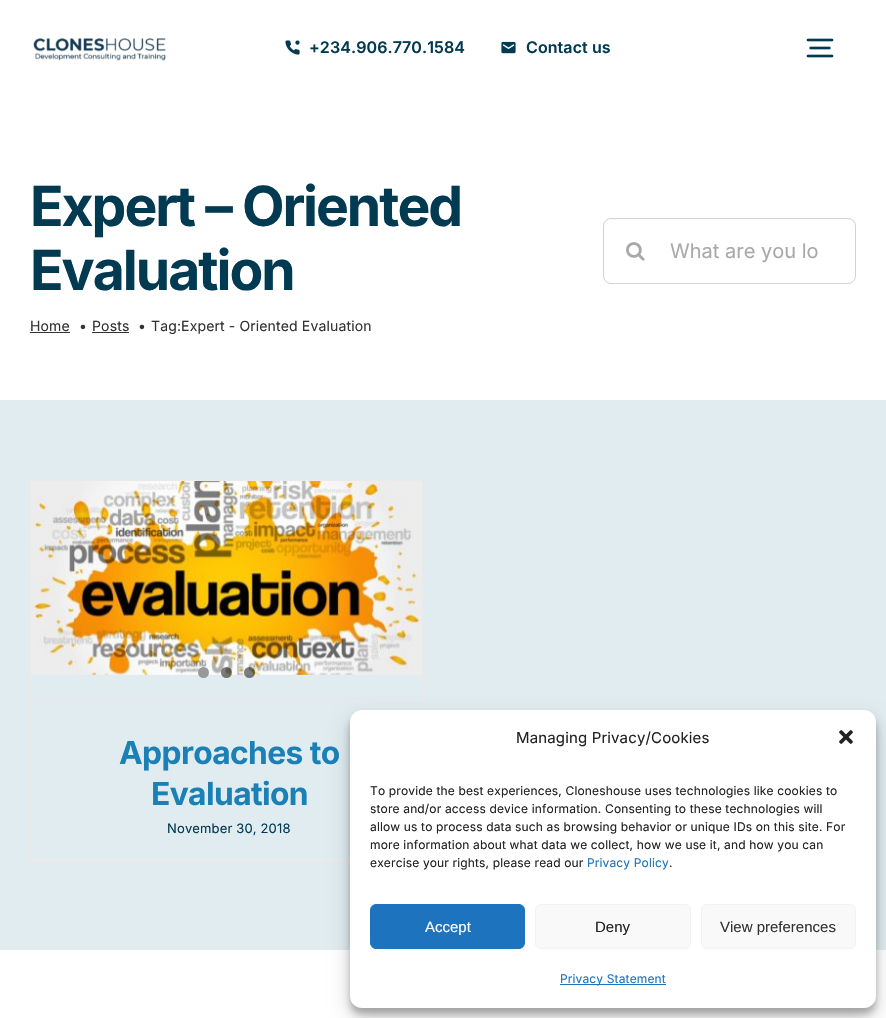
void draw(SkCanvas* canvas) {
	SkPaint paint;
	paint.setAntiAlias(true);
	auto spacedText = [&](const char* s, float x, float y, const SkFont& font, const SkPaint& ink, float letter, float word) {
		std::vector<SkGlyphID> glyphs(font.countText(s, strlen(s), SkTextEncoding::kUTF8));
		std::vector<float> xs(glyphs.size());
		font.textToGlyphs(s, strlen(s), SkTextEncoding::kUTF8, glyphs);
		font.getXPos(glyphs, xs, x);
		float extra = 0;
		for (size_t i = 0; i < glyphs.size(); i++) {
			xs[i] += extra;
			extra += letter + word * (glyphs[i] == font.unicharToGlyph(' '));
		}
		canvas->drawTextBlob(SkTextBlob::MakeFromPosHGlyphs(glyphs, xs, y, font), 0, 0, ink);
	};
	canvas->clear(0xffffffff);
	canvas->drawImageRect(SkImages::DeferredFromEncodedData(SkData::MakeFromFileName("img1.png")), SkRect::MakeXYWH(33, 38, 133, 23), SkSamplingOptions());
	canvas->drawImageRect(SkImages::DeferredFromEncodedData(SkData::MakeFromFileName("img2.png")), SkRect::MakeXYWH(285, 40, 15, 15), SkSamplingOptions());
	SkFont f1(fontMgr->matchFamilyStyle("Inter", SkFontStyle(600, SkFontStyle::kNormal_Width, SkFontStyle::kUpright_Slant)), 16);
	f1.setSubpixel(true);
	paint.setColor(0xff023a51);
	spacedText("+234.906.770.1584", 309, 53, f1, paint, 0.1, 0);
	canvas->drawImageRect(SkImages::DeferredFromEncodedData(SkData::MakeFromFileName("img3.png")), SkRect::MakeXYWH(501, 41, 15, 13), SkSamplingOptions());
	spacedText("Contact us", 526, 53, f1, paint, 0.1, 0);
	canvas->drawImageRect(SkImages::DeferredFromEncodedData(SkData::MakeFromFileName("img4.png")), SkRect::MakeXYWH(806, 38, 28, 20), SkSamplingOptions());
	SkFont f2(fontMgr->matchFamilyStyle("Inter", SkFontStyle::Bold()), 55.25);
	f2.setSubpixel(true);
	spacedText("Expert – Oriented", 30, 226, f2, paint, -2, 0);
	spacedText("Evaluation", 30, 290, f2, paint, -2, 0);
	SkFont f3(fontMgr->matchFamilyStyle("Inter", SkFontStyle::Normal()), 14);
	f3.setSubpixel(true);
	paint.setColor(0xff333333);
	spacedText("Home", 30, 331, f3, paint, 0.15, 0);
	canvas->drawRect(SkRect::MakeXYWH(30, 332, 40, 1), paint);
	spacedText("•", 79, 331, f3, paint, 0.15, 0);
	spacedText("Posts", 92, 331, f3, paint, 0.15, 0);
	canvas->drawRect(SkRect::MakeXYWH(92, 332, 37, 1), paint);
	spacedText("•", 138, 331, f3, paint, 0.15, 0);
	spacedText("Tag:Expert - Oriented Evaluation", 151, 331, f3, paint, 0.15, 0);
	paint.setStroke(true);
	paint.setStrokeWidth(1);
	paint.setColor(0xffd2d2d2);
	canvas->drawRoundRect(SkRect::MakeXYWH(603.5, 218.5, 252, 65), 7.5, 7.5, paint);
	canvas->drawImageRect(SkImages::DeferredFromEncodedData(SkData::MakeFromFileName("img5.png")), SkRect::MakeXYWH(626, 242, 19, 19), SkSamplingOptions());
	SkFont f4(fontMgr->matchFamilyStyle("Inter", SkFontStyle::Normal()), 20);
	f4.setSubpixel(true);
	paint.setStroke(false);
	paint.setColor(0xffaaa9a9);
	canvas->drawString("What are you lo", 670, 258, f4, paint);
	paint.setColor(0xffe0ecf0);
	canvas->drawRect(SkRect::MakeXYWH(0, 400, 886, 550), paint);
	paint.setColor(0xffebeaea);
	canvas->drawRect(SkRect::MakeXYWH(30, 480, 393, 1), paint);
	canvas->drawRect(SkRect::MakeXYWH(422, 480, 1, 230), paint);
	canvas->drawRect(SkRect::MakeXYWH(30, 859, 320, 3), paint);
	canvas->drawRect(SkRect::MakeXYWH(30, 480, 1, 382), paint);
	canvas->drawRect(SkRect::MakeXYWH(31, 701, 391, 1), paint);
	canvas->drawImageRect(SkImages::DeferredFromEncodedData(SkData::MakeFromFileName("img6.png")), SkRect::MakeXYWH(31, 481, 391, 194), SkSamplingOptions());
	paint.setColor(0xff999999);
	canvas->drawCircle(203.5, 672.5, 5.5, paint);
	paint.setColor(0x80000000);
	canvas->drawCircle(226.5, 672.5, 5.5, paint);
	canvas->drawCircle(249.5, 672.5, 5.5, paint);
	SkFont f5(fontMgr->matchFamilyStyle("Inter", SkFontStyle::Bold()), 31.75);
	f5.setSubpixel(true);
	paint.setColor(0xff1a80b6);
	spacedText("Approaches to", 119, 764, f5, paint, -0.6, 0);
	spacedText("Evaluation", 151, 805, f5, paint, -0.6, 0);
	SkFont f6(fontMgr->matchFamilyStyle("Inter", SkFontStyle::Normal()), 13);
	f6.setSubpixel(true);
	paint.setColor(0xff023a51);
	spacedText("November 30, 2018", 167, 833, f6, paint, 0.15, 0);
	paint.setColor(0x3b000000);
	paint.setMaskFilter(SkMaskFilter::MakeBlur(kNormal_SkBlurStyle, 3));
	canvas->drawRoundRect(SkRect::MakeXYWH(350, 716, 526, 298), 12, 12, paint);
	paint.setMaskFilter(nullptr);
	paint.setColor(0x30000000);
	paint.setMaskFilter(SkMaskFilter::MakeBlur(kNormal_SkBlurStyle, 10));
	canvas->drawRoundRect(SkRect::MakeXYWH(350, 720, 526, 298), 12, 12, paint);
	paint.setMaskFilter(nullptr);
	paint.setColor(0xffffffff);
	canvas->drawRoundRect(SkRect::MakeXYWH(350, 710, 526, 298), 12, 12, paint);
	SkFont f7(fontMgr->matchFamilyStyle("Inter", SkFontStyle::Normal()), 15);
	f7.setSubpixel(true);
	paint.setColor(0xff222222);
	spacedText("Managing Privacy/Cookies", 516, 743, f7, paint, 0.15, 0);
	canvas->drawImageRect(SkImages::DeferredFromEncodedData(SkData::MakeFromFileName("img7.png")), SkRect::MakeXYWH(839, 730, 14, 14), SkSamplingOptions());
	SkFont f8(fontMgr->matchFamilyStyle("Inter", SkFontStyle::Normal()), 12);
	f8.setSubpixel(true);
	spacedText("To provide the best experiences, Cloneshouse uses technologies like cookies to", 370, 795, f8, paint, 0.15, 0);
	spacedText("store and/or access device information. Consenting to these technologies will", 370, 813, f8, paint, 0.15, 0);
	spacedText("allow us to process data such as browsing behavior or unique IDs on this site. For", 370, 831, f8, paint, 0.15, 0);
	spacedText("more information about what data we collect, how we use it, and how you can", 370, 849, f8, paint, 0.15, 0);
	spacedText("exercise your rights, please read our", 370, 867, f8, paint, 0.15, 0);
	paint.setColor(0xff1e73be);
	spacedText("Privacy Policy", 587, 867, f8, paint, 0.15, 0);
	paint.setColor(0xff222222);
	spacedText(".", 669, 867, f8, paint, 0.15, 0);
	paint.setColor(0xff1e73be);
	canvas->drawRoundRect(SkRect::MakeXYWH(370.5, 904.5, 154, 44), 5.5, 5.5, paint);
	paint.setStroke(true);
	canvas->drawRoundRect(SkRect::MakeXYWH(370.5, 904.5, 154, 44), 5.5, 5.5, paint);
	SkFont f9(fontMgr->matchFamilyStyle("Liberation Sans", SkFontStyle::Normal()), 15);
	f9.setSubpixel(true);
	paint.setStroke(false);
	paint.setColor(0xffffffff);
	canvas->drawString("Accept", 425, 932, f9, paint);
	paint.setColor(0xfff9f9f9);
	canvas->drawRoundRect(SkRect::MakeXYWH(535.5, 904.5, 155, 44), 5.5, 5.5, paint);
	paint.setStroke(true);
	paint.setColor(0xfff2f2f2);
	canvas->drawRoundRect(SkRect::MakeXYWH(535.5, 904.5, 155, 44), 5.5, 5.5, paint);
	paint.setStroke(false);
	paint.setColor(0xff222222);
	canvas->drawString("Deny", 595, 932, f9, paint);
	paint.setColor(0xfff9f9f9);
	canvas->drawRoundRect(SkRect::MakeXYWH(701.5, 904.5, 154, 44), 5.5, 5.5, paint);
	paint.setStroke(true);
	paint.setColor(0xfff2f2f2);
	canvas->drawRoundRect(SkRect::MakeXYWH(701.5, 904.5, 154, 44), 5.5, 5.5, paint);
	paint.setStroke(false);
	paint.setColor(0xff333333);
	canvas->drawString("View preferences", 720, 932, f9, paint);
	paint.setColor(0xff1e73be);
	canvas->drawRect(SkRect::MakeXYWH(560, 984, 106, 1), paint);
	spacedText("Privacy Statement", 560, 983, f8, paint, 0.15, 0);
}
